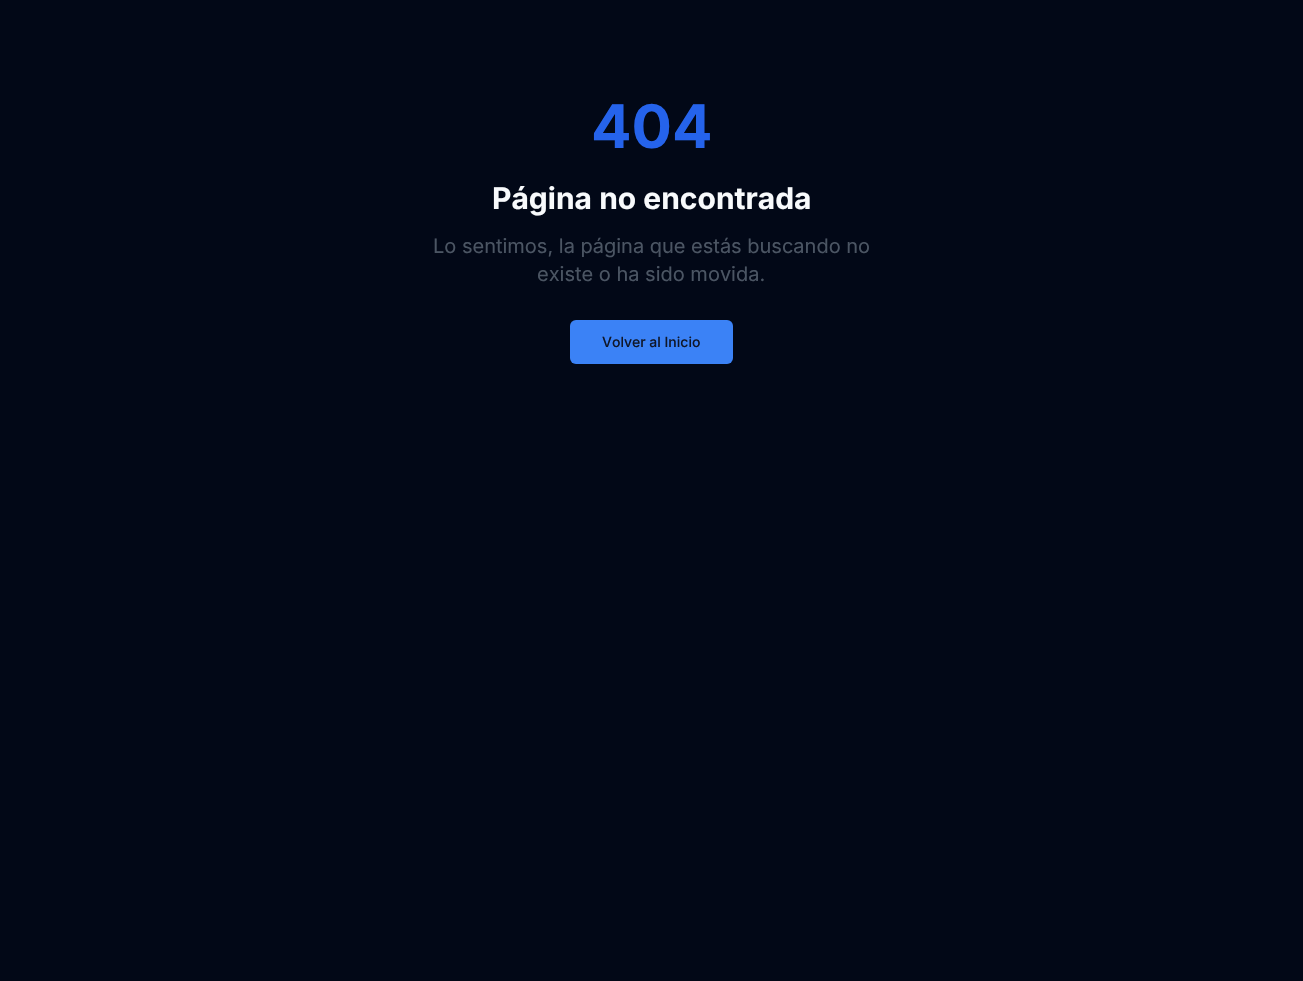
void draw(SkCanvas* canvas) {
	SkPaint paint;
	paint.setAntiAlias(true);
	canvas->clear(0xff020817);
	SkFont f1(fontMgr->matchFamilyStyle("Inter", SkFontStyle::Bold()), 60);
	f1.setSubpixel(true);
	paint.setColor(0xff2563eb);
	canvas->drawString("404", 591, 148, f1, paint);
	SkFont f2(fontMgr->matchFamilyStyle("Inter", SkFontStyle::Bold()), 30);
	f2.setSubpixel(true);
	paint.setColor(0xfff8fafc);
	canvas->drawString("Página no encontrada", 492, 209, f2, paint);
	SkFont f3(fontMgr->matchFamilyStyle("Inter", SkFontStyle::Normal()), 20);
	f3.setSubpixel(true);
	paint.setColor(0xff4b5563);
	canvas->drawString("Lo sentimos, la página que estás buscando no", 433, 253, f3, paint);
	canvas->drawString("existe o ha sido movida.", 537, 281, f3, paint);
	paint.setColor(0xff3b82f6);
	canvas->drawRoundRect(SkRect::MakeXYWH(570, 320, 163, 44), 6, 6, paint);
	SkFont f4(fontMgr->matchFamilyStyle("Inter", SkFontStyle(500, SkFontStyle::kNormal_Width, SkFontStyle::kUpright_Slant)), 14);
	f4.setSubpixel(true);
	paint.setColor(0xff0f172a);
	canvas->drawString("Volver al Inicio", 602, 347, f4, paint);
}
